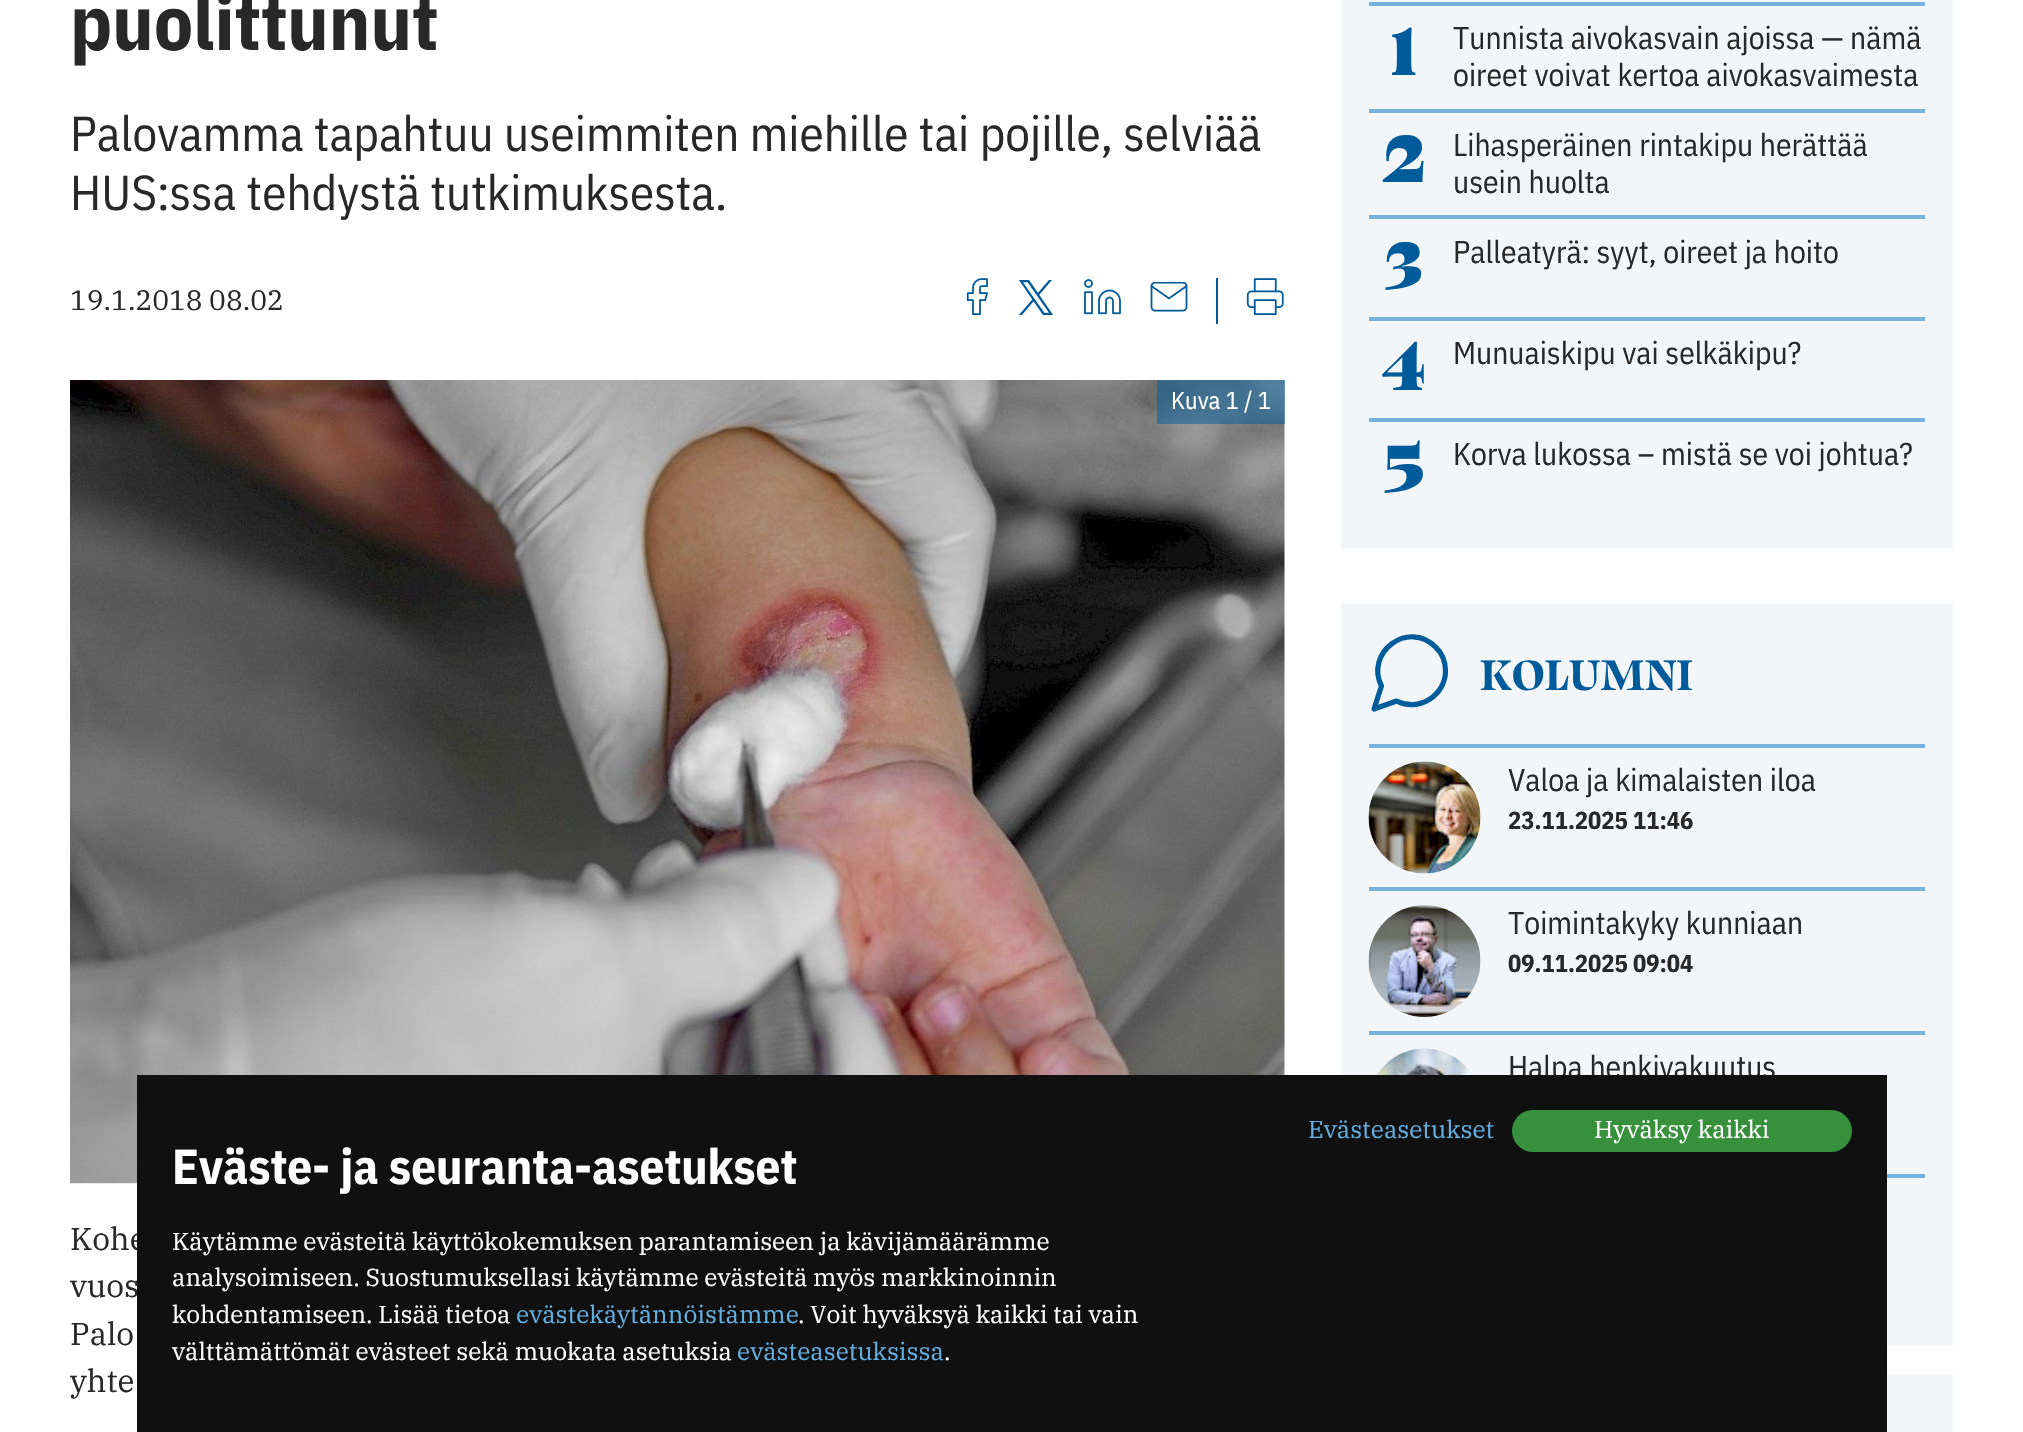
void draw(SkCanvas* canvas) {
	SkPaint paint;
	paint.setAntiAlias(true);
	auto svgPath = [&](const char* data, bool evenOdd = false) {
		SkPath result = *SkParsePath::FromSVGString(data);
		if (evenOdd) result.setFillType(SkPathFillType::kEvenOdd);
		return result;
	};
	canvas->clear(0xffffffff);
	SkFont f1(fontMgr->matchFamilyStyle("IBM Plex Sans Condensed", SkFontStyle::Bold()), 77);
	f1.setSubpixel(true);
	paint.setColor(0xff282828);
	canvas->drawString("puolittunut", 70, 50, f1, paint);
	SkFont f2(fontMgr->matchFamilyStyle("IBM Plex Sans Condensed", SkFontStyle::Normal()), 49);
	f2.setSubpixel(true);
	canvas->drawString("Palovamma tapahtuu useimmiten miehille tai pojille, selviää", 70, 151, f2, paint);
	canvas->drawString("HUS:ssa tehdystä tutkimuksesta.", 70, 210, f2, paint);
	SkFont f3(fontMgr->matchFamilyStyle("IBM Plex Serif", SkFontStyle::Normal()), 28);
	f3.setSubpixel(true);
	canvas->drawString("19.1.2018 08.02", 70, 310, f3, paint);
	canvas->drawImageRect(SkImages::DeferredFromEncodedData(SkData::MakeFromFileName("img1.png")), SkRect::MakeXYWH(966, 278, 22, 37), SkSamplingOptions());
	canvas->drawImageRect(SkImages::DeferredFromEncodedData(SkData::MakeFromFileName("img2.png")), SkRect::MakeXYWH(1019, 280, 34, 35), SkSamplingOptions());
	canvas->drawImageRect(SkImages::DeferredFromEncodedData(SkData::MakeFromFileName("img3.png")), SkRect::MakeXYWH(1084, 279, 37, 36), SkSamplingOptions());
	canvas->drawImageRect(SkImages::DeferredFromEncodedData(SkData::MakeFromFileName("img4.png")), SkRect::MakeXYWH(1150, 282, 38, 30), SkSamplingOptions());
	paint.setColor(0xff005b9a);
	canvas->drawRect(SkRect::MakeXYWH(1216, 278, 2, 46), paint);
	canvas->drawImageRect(SkImages::DeferredFromEncodedData(SkData::MakeFromFileName("img5.png")), SkRect::MakeXYWH(1246, 278, 38, 37), SkSamplingOptions());
	canvas->drawImageRect(SkImages::DeferredFromEncodedData(SkData::MakeFromFileName("img6.png")), SkRect::MakeXYWH(70, 380, 1215, 804), SkSamplingOptions());
	paint.setColor(0x80005b9a);
	canvas->drawRect(SkRect::MakeXYWH(1157, 380, 128, 44), paint);
	SkFont f4(fontMgr->matchFamilyStyle("IBM Plex Sans Condensed", SkFontStyle::Normal()), 24.5);
	f4.setSubpixel(true);
	paint.setColor(0xffffffff);
	canvas->drawString("Kuva 1 / 1", 1171, 409, f4, paint);
	SkFont f5(fontMgr->matchFamilyStyle("IBM Plex Serif", SkFontStyle::Normal()), 31.5);
	f5.setSubpixel(true);
	paint.setColor(0xff282828);
	canvas->drawString("Kohe", 70, 1250, f5, paint);
	canvas->drawString("vuos", 70, 1297, f5, paint);
	canvas->drawString("Palo", 70, 1345, f5, paint);
	canvas->drawString("yhte", 70, 1392, f5, paint);
	paint.setColor(0xfff2f6f9);
	canvas->drawRect(SkRect::MakeXYWH(1341, 0, 612, 548), paint);
	paint.setColor(0xff75b3de);
	canvas->drawRect(SkRect::MakeXYWH(1369, 2, 556, 4), paint);
	SkFont f6(fontMgr->matchFamilyStyle("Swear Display", SkFontStyle(900, SkFontStyle::kNormal_Width, SkFontStyle::kUpright_Slant)), 77);
	f6.setSubpixel(true);
	paint.setColor(0xff005b9a);
	canvas->drawString("1", 1391, 75, f6, paint);
	SkFont f7(fontMgr->matchFamilyStyle("IBM Plex Sans Condensed", SkFontStyle::Normal()), 31.5);
	f7.setSubpixel(true);
	paint.setColor(0xff282828);
	canvas->drawString("Tunnista aivokasvain ajoissa — nämä", 1453, 49, f7, paint);
	canvas->drawString("oireet voivat kertoa aivokasvaimesta", 1453, 86, f7, paint);
	paint.setColor(0xff75b3de);
	canvas->drawRect(SkRect::MakeXYWH(1369, 109, 556, 4), paint);
	paint.setColor(0xff005b9a);
	canvas->drawString("2", 1383, 182, f6, paint);
	paint.setColor(0xff282828);
	canvas->drawString("Lihasperäinen rintakipu herättää", 1453, 156, f7, paint);
	canvas->drawString("usein huolta", 1453, 193, f7, paint);
	paint.setColor(0xff75b3de);
	canvas->drawRect(SkRect::MakeXYWH(1369, 215, 556, 4), paint);
	paint.setColor(0xff005b9a);
	canvas->drawString("3", 1385, 289, f6, paint);
	paint.setColor(0xff282828);
	canvas->drawString("Palleatyrä: syyt, oireet ja hoito", 1453, 263, f7, paint);
	paint.setColor(0xff75b3de);
	canvas->drawRect(SkRect::MakeXYWH(1369, 317, 556, 4), paint);
	paint.setColor(0xff005b9a);
	canvas->drawString("4", 1382, 390, f6, paint);
	paint.setColor(0xff282828);
	canvas->drawString("Munuaiskipu vai selkäkipu?", 1453, 364, f7, paint);
	paint.setColor(0xff75b3de);
	canvas->drawRect(SkRect::MakeXYWH(1369, 418, 556, 4), paint);
	paint.setColor(0xff005b9a);
	canvas->drawString("5", 1384, 492, f6, paint);
	paint.setColor(0xff282828);
	canvas->drawString("Korva lukossa – mistä se voi johtua?", 1453, 465, f7, paint);
	paint.setColor(0xfff2f6f9);
	canvas->drawRect(SkRect::MakeXYWH(1341, 604, 612, 742), paint);
	paint.setStroke(true);
	paint.setStrokeWidth(5.2);
	paint.setStrokeCap(SkPaint::kRound_Cap);
	paint.setStrokeJoin(SkPaint::kRound_Join);
	paint.setColor(0xff005b9a);
	canvas->drawPath(svgPath("M1445.5 671C1445.5 695.5 1418.5 712.5 1396.5 701L1374 709L1381.5 686C1364.5 652.5 1408.5 619.5 1435.5 647C1442 653 1445.5 662 1445.5 671Z"), paint);
	SkFont f8(fontMgr->matchFamilyStyle("Swear Display", SkFontStyle::Bold()), 49);
	f8.setSubpixel(true);
	paint.setStroke(false);
	canvas->drawString("KOLUMNI", 1480, 690, f8, paint);
	paint.setColor(0xff75b3de);
	canvas->drawRect(SkRect::MakeXYWH(1369, 744, 556, 4), paint);
	canvas->drawImageRect(SkImages::DeferredFromEncodedData(SkData::MakeFromFileName("img7.png")), SkRect::MakeXYWH(1368, 761, 113, 113), SkSamplingOptions());
	paint.setColor(0xff282828);
	canvas->drawString("Valoa ja kimalaisten iloa", 1508, 791, f7, paint);
	SkFont f9(fontMgr->matchFamilyStyle("IBM Plex Sans Condensed", SkFontStyle::Bold()), 24.5);
	f9.setSubpixel(true);
	canvas->drawString("23.11.2025 11:46", 1508, 829, f9, paint);
	paint.setColor(0xff75b3de);
	canvas->drawRect(SkRect::MakeXYWH(1369, 887, 556, 4), paint);
	canvas->drawImageRect(SkImages::DeferredFromEncodedData(SkData::MakeFromFileName("img8.png")), SkRect::MakeXYWH(1368, 905, 113, 112), SkSamplingOptions());
	paint.setColor(0xff282828);
	canvas->drawString("Toimintakyky kunniaan", 1508, 934, f7, paint);
	canvas->drawString("09.11.2025 09:04", 1508, 972, f9, paint);
	paint.setColor(0xff75b3de);
	canvas->drawRect(SkRect::MakeXYWH(1369, 1031, 556, 4), paint);
	canvas->drawImageRect(SkImages::DeferredFromEncodedData(SkData::MakeFromFileName("img9.png")), SkRect::MakeXYWH(1377, 1048, 95, 27), SkSamplingOptions());
	paint.setColor(0xff282828);
	canvas->drawString("Halpa henkivakuutus", 1508, 1078, f7, paint);
	paint.setColor(0xff75b3de);
	canvas->drawRect(SkRect::MakeXYWH(1887, 1174, 38, 4), paint);
	paint.setColor(0xfff2f6f9);
	canvas->drawRect(SkRect::MakeXYWH(1887, 1374, 66, 58), paint);
	paint.setColor(0xff101010);
	canvas->drawRect(SkRect::MakeXYWH(137, 1075, 1750, 357), paint);
	SkFont f10(fontMgr->matchFamilyStyle("IBM Plex Serif", SkFontStyle::Normal()), 24.5);
	f10.setSubpixel(true);
	paint.setColor(0xff63afe1);
	canvas->drawString("Evästeasetukset", 1308, 1138, f10, paint);
	paint.setColor(0xff37913c);
	canvas->drawRoundRect(SkRect::MakeXYWH(1512, 1110, 340, 42), 21, 21, paint);
	paint.setColor(0xffffffff);
	canvas->drawString("Hyväksy kaikki", 1594, 1138, f10, paint);
	SkFont f11(fontMgr->matchFamilyStyle("IBM Plex Sans Condensed", SkFontStyle::Bold()), 49);
	f11.setSubpixel(true);
	canvas->drawString("Eväste- ja seuranta-asetukset", 172, 1184, f11, paint);
	canvas->drawString("Käytämme evästeitä käyttökokemuksen parantamiseen ja kävijämäärämme", 172, 1250, f10, paint);
	canvas->drawString("analysoimiseen. Suostumuksellasi käytämme evästeitä myös markkinoinnin", 172, 1286, f10, paint);
	canvas->drawString("kohdentamiseen. Lisää tietoa", 172, 1323, f10, paint);
	paint.setColor(0xff63afe1);
	canvas->drawString("evästekäytännöistämme", 516, 1323, f10, paint);
	paint.setColor(0xffffffff);
	canvas->drawString(". Voit hyväksyä kaikki tai vain", 798, 1323, f10, paint);
	canvas->drawString("välttämättömät evästeet sekä muokata asetuksia", 172, 1360, f10, paint);
	paint.setColor(0xff63afe1);
	canvas->drawString("evästeasetuksissa", 737, 1360, f10, paint);
	paint.setColor(0xffffffff);
	canvas->drawString(".", 944, 1360, f10, paint);
}
